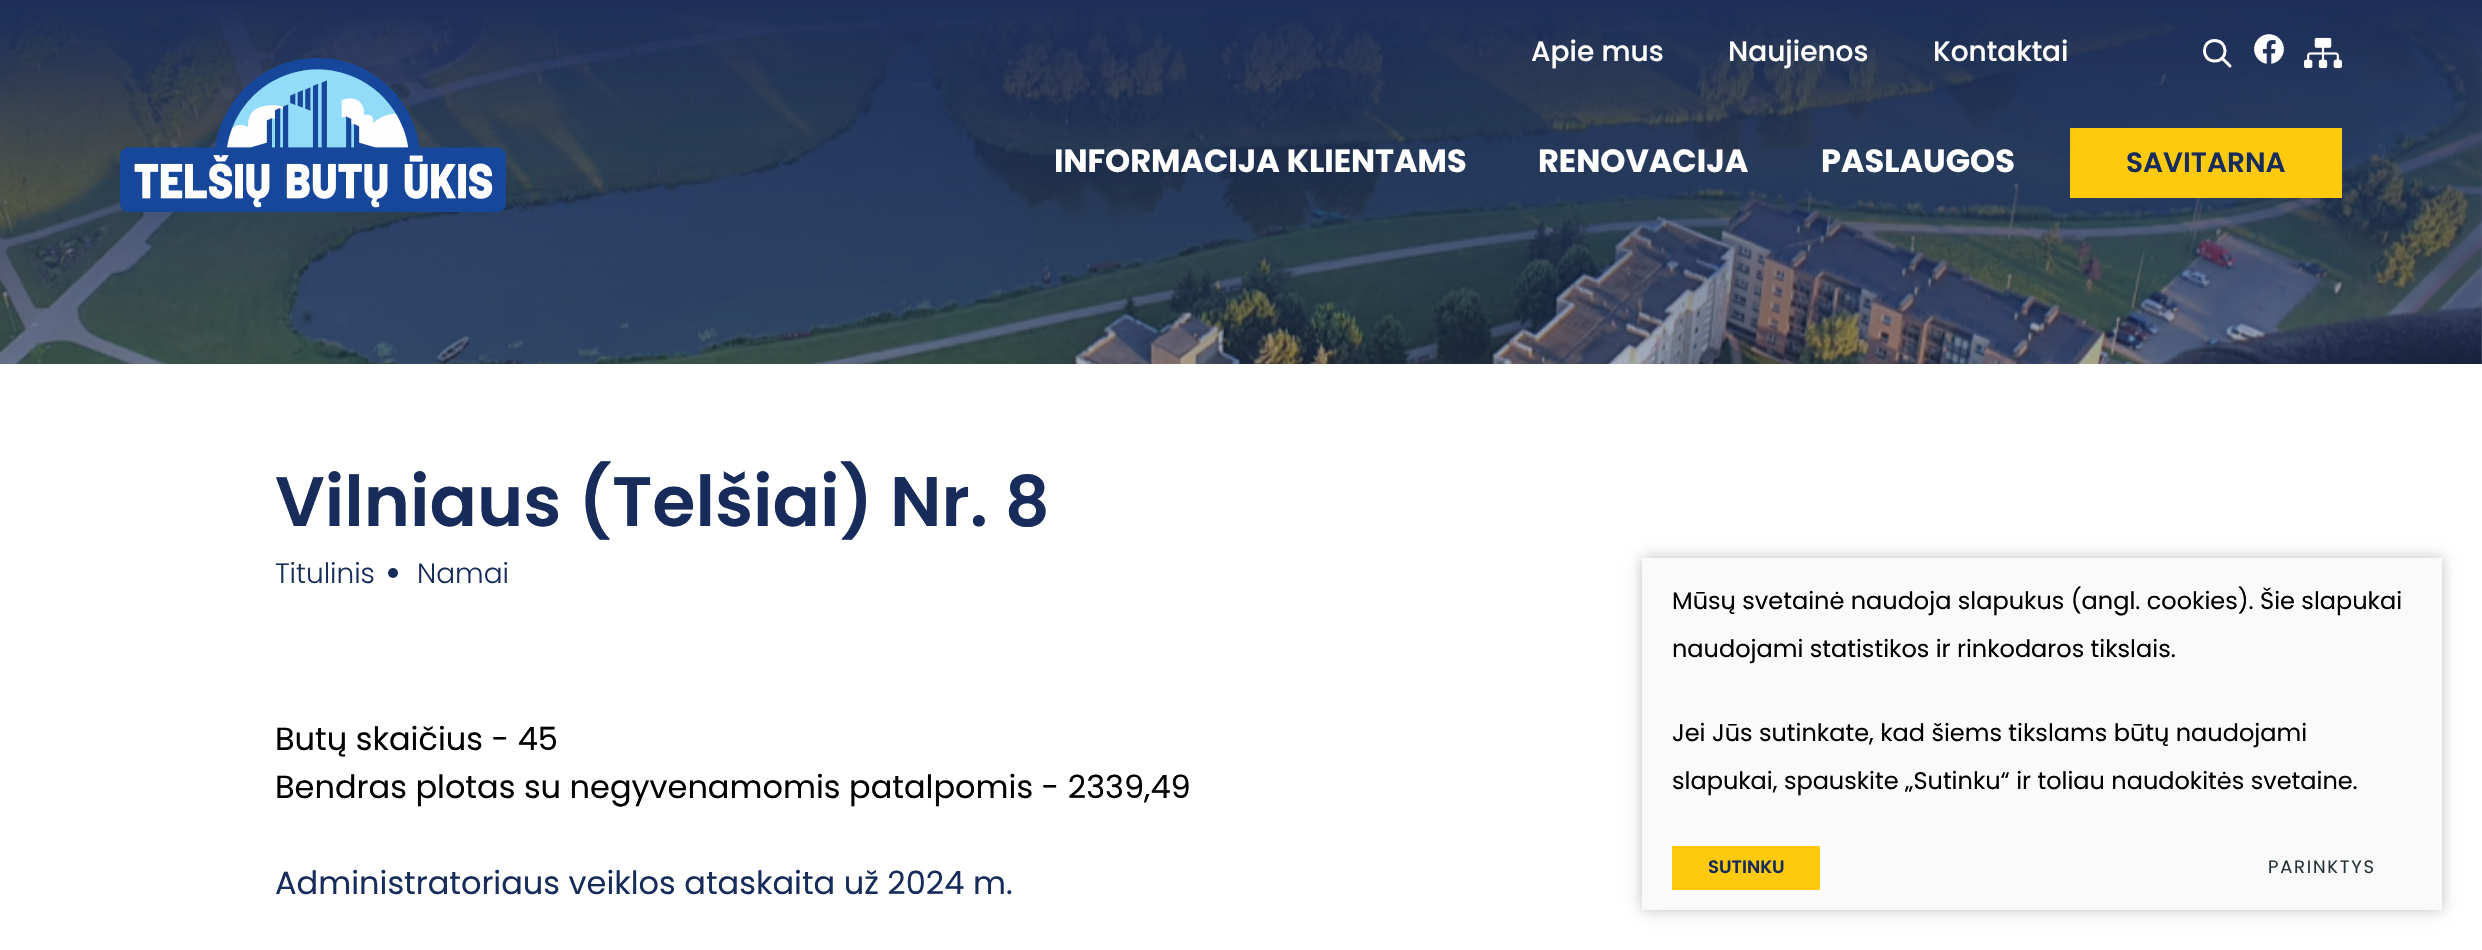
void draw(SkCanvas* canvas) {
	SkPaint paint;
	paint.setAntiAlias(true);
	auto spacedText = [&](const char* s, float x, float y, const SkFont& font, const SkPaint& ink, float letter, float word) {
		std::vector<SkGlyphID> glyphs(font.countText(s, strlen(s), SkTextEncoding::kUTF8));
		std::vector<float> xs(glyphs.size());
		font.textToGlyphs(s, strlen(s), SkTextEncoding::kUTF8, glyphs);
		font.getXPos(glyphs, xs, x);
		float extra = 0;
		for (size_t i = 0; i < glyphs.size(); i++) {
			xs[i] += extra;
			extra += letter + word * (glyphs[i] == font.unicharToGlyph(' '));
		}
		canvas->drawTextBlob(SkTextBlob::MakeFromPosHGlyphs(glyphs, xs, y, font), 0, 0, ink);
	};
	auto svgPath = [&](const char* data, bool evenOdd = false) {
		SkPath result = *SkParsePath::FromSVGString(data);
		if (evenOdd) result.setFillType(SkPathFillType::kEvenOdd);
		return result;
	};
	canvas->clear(0xffffffff);
	canvas->drawImageRect(SkImages::DeferredFromEncodedData(SkData::MakeFromFileName("img4.png")), SkRect::MakeXYWH(0, 4, 2482, 360), SkSamplingOptions());
	{
		const SkColor colors[] = {0xff1c2e58, 0x001c2e58};
		const float stops[] = {0, 1};
		const SkPoint ends[] = {{1241, 0}, {1241, 595}};
		paint.setShader(SkGradientShader::MakeLinear(ends, colors, stops, 2, SkTileMode::kClamp));
		paint.setAlpha(255);
	}
	canvas->drawRect(SkRect::MakeXYWH(0, 0, 2482, 364), paint);
	canvas->drawImageRect(SkImages::DeferredFromEncodedData(SkData::MakeFromFileName("img1.png")), SkRect::MakeXYWH(120, 58, 386, 154), SkSamplingOptions());
	SkFont f1(fontMgr->matchFamilyStyle("Poppins", SkFontStyle(500, SkFontStyle::kNormal_Width, SkFontStyle::kUpright_Slant)), 28);
	f1.setSubpixel(true);
	paint.setShader(nullptr);
	paint.setColor(0xffffffff);
	canvas->drawString("Apie mus", 1531, 61, f1, paint);
	canvas->drawString("Naujienos", 1728, 61, f1, paint);
	canvas->drawString("Kontaktai", 1933, 61, f1, paint);
	paint.setStroke(true);
	paint.setStrokeWidth(3);
	canvas->drawPath(svgPath("M2214.5 40.5C2201 40.5 2201 61.5 2215 61C2228.5 61 2228.5 40.5 2214.5 40.5Z"), paint);
	paint.setStrokeCap(SkPaint::kRound_Cap);
	canvas->drawPath(svgPath("M2222.5 58.5L2230 66"), paint);
	canvas->drawImageRect(SkImages::DeferredFromEncodedData(SkData::MakeFromFileName("img2.png")), SkRect::MakeXYWH(2254, 34, 30, 30), SkSamplingOptions());
	canvas->drawImageRect(SkImages::DeferredFromEncodedData(SkData::MakeFromFileName("img3.png")), SkRect::MakeXYWH(2304, 37, 38, 32), SkSamplingOptions());
	SkFont f2(fontMgr->matchFamilyStyle("Poppins", SkFontStyle::Bold()), 32);
	f2.setSubpixel(true);
	paint.setStroke(false);
	canvas->drawString("INFORMACIJA KLIENTAMS", 1054, 172, f2, paint);
	canvas->drawString("RENOVACIJA", 1538, 172, f2, paint);
	canvas->drawString("PASLAUGOS", 1821, 172, f2, paint);
	paint.setColor(0xffffca0d);
	canvas->drawRect(SkRect::MakeXYWH(2070, 128, 272, 70), paint);
	SkFont f3(fontMgr->matchFamilyStyle("Poppins", SkFontStyle(600, SkFontStyle::kNormal_Width, SkFontStyle::kUpright_Slant)), 28);
	f3.setSubpixel(true);
	paint.setColor(0xff172c5a);
	canvas->drawString("SAVITARNA", 2126, 172, f3, paint);
	SkFont f4(fontMgr->matchFamilyStyle("Poppins", SkFontStyle(600, SkFontStyle::kNormal_Width, SkFontStyle::kUpright_Slant)), 70);
	f4.setSubpixel(true);
	canvas->drawString("Vilniaus (Telšiai) Nr. 8", 275, 526, f4, paint);
	SkFont f5(fontMgr->matchFamilyStyle("Poppins", SkFontStyle(300, SkFontStyle::kNormal_Width, SkFontStyle::kUpright_Slant)), 28);
	f5.setSubpixel(true);
	canvas->drawString("Titulinis", 275, 583, f5, paint);
	canvas->drawCircle(393, 573, 5, paint);
	canvas->drawString("Namai", 417, 583, f5, paint);
	SkFont f6(fontMgr->matchFamilyStyle("Poppins", SkFontStyle::Normal()), 32);
	f6.setSubpixel(true);
	paint.setColor(0xff000000);
	canvas->drawString("Butų skaičius - 45", 275, 750, f6, paint);
	canvas->drawString("Bendras plotas su negyvenamomis patalpomis - 2339,49", 275, 798, f6, paint);
	paint.setColor(0xff172c5a);
	canvas->drawString("Administratoriaus veiklos ataskaita už 2024 m.", 275, 894, f6, paint);
	paint.setColor(0x40000000);
	paint.setMaskFilter(SkMaskFilter::MakeBlur(kNormal_SkBlurStyle, 7));
	canvas->drawRect(SkRect::MakeXYWH(1642, 558, 800, 352), paint);
	paint.setMaskFilter(nullptr);
	paint.setColor(0xfffafafa);
	canvas->drawRect(SkRect::MakeXYWH(1642, 558, 800, 352), paint);
	SkFont f7(fontMgr->matchFamilyStyle("Poppins", SkFontStyle::Normal()), 24);
	f7.setSubpixel(true);
	paint.setColor(0xff000000);
	canvas->drawString("Mūsų svetainė naudoja slapukus (angl. cookies). Šie slapukai", 1672, 609, f7, paint);
	canvas->drawString("naudojami statistikos ir rinkodaros tikslais.", 1672, 657, f7, paint);
	canvas->drawString("Jei Jūs sutinkate, kad šiems tikslams būtų naudojami", 1672, 741, f7, paint);
	canvas->drawString("slapukai, spauskite „Sutinku“ ir toliau naudokitės svetaine.", 1672, 789, f7, paint);
	paint.setColor(0xffffca0d);
	canvas->drawRect(SkRect::MakeXYWH(1672, 846, 148, 44), paint);
	SkFont f8(fontMgr->matchFamilyStyle("Poppins", SkFontStyle(600, SkFontStyle::kNormal_Width, SkFontStyle::kUpright_Slant)), 18);
	f8.setSubpixel(true);
	paint.setColor(0xff172c5a);
	canvas->drawString("SUTINKU", 1708, 873, f8, paint);
	SkFont f9(fontMgr->matchFamilyStyle("Poppins", SkFontStyle::Normal()), 18);
	f9.setSubpixel(true);
	paint.setColor(0xff263238);
	spacedText("PARINKTYS", 2268, 873, f9, paint, 1.75, 0);
}
